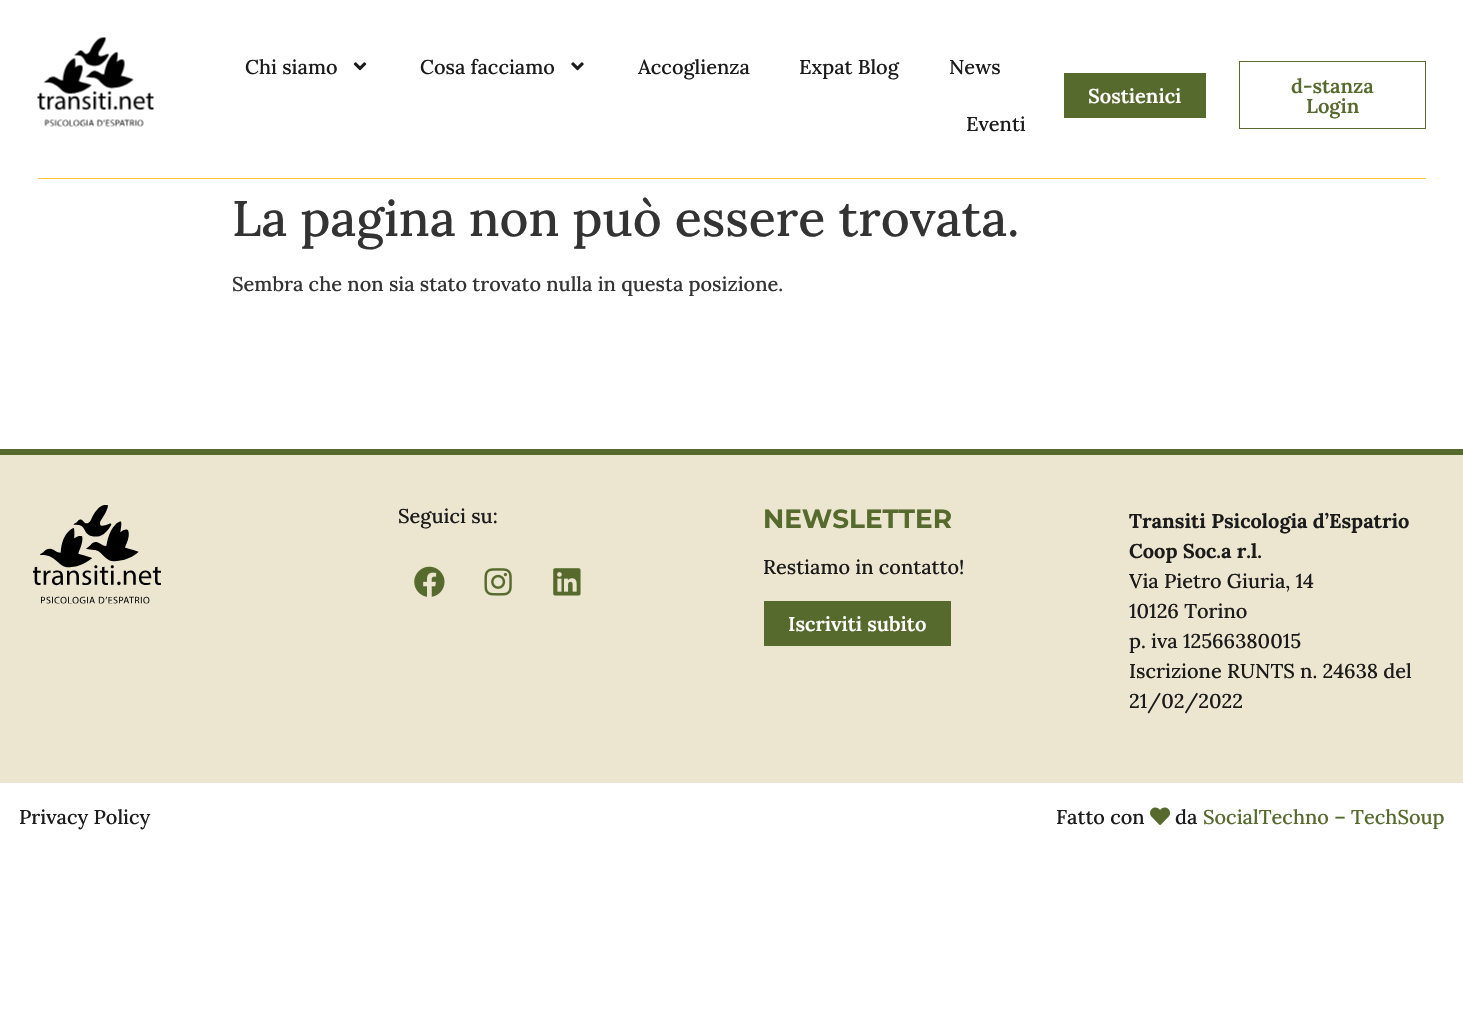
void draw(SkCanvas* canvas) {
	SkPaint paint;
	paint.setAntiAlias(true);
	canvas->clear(0xffffffff);
	canvas->drawImageRect(SkImages::DeferredFromEncodedData(SkData::MakeFromFileName("img1.png")), SkRect::MakeXYWH(37, 37, 117, 90), SkSamplingOptions());
	SkFont f1(fontMgr->matchFamilyStyle("Lora", SkFontStyle(500, SkFontStyle::kNormal_Width, SkFontStyle::kUpright_Slant)), 20);
	f1.setSubpixel(true);
	paint.setColor(0xff1b1b1b);
	canvas->drawString("Chi siamo", 245, 74, f1, paint);
	canvas->drawImageRect(SkImages::DeferredFromEncodedData(SkData::MakeFromFileName("img2.png")), SkRect::MakeXYWH(353, 62, 14, 9), SkSamplingOptions());
	canvas->drawString("Cosa facciamo", 420, 74, f1, paint);
	canvas->drawImageRect(SkImages::DeferredFromEncodedData(SkData::MakeFromFileName("img3.png")), SkRect::MakeXYWH(571, 62, 13, 9), SkSamplingOptions());
	canvas->drawString("Accoglienza", 638, 74, f1, paint);
	canvas->drawString("Expat Blog", 799, 74, f1, paint);
	canvas->drawString("News", 949, 74, f1, paint);
	canvas->drawString("Eventi", 966, 131, f1, paint);
	paint.setColor(0xff566a2d);
	canvas->drawRect(SkRect::MakeXYWH(1064, 73, 142, 45), paint);
	SkFont f2(fontMgr->matchFamilyStyle("Lora", SkFontStyle(600, SkFontStyle::kNormal_Width, SkFontStyle::kUpright_Slant)), 20);
	f2.setSubpixel(true);
	paint.setColor(0xffffffff);
	canvas->drawString("Sostienici", 1088, 103, f2, paint);
	paint.setStroke(true);
	paint.setStrokeWidth(1);
	paint.setColor(0xff566a2d);
	canvas->drawRect(SkRect::MakeXYWH(1239.5, 61.5, 186, 67), paint);
	paint.setStroke(false);
	canvas->drawString("d-stanza", 1291, 93, f2, paint);
	canvas->drawString("Login", 1306, 113, f2, paint);
	paint.setColor(0xffffc445);
	canvas->drawRect(SkRect::MakeXYWH(38, 178, 1388, 1), paint);
	SkFont f3(fontMgr->matchFamilyStyle("Lora", SkFontStyle(500, SkFontStyle::kNormal_Width, SkFontStyle::kUpright_Slant)), 50);
	f3.setSubpixel(true);
	paint.setColor(0xff333333);
	canvas->drawString("La pagina non può essere trovata.", 232, 236, f3, paint);
	canvas->drawString("Sembra che non sia stato trovato nulla in questa posizione.", 232, 291, f1, paint);
	paint.setColor(0xffece5d0);
	canvas->drawRect(SkRect::MakeXYWH(0, 455, 1463, 328), paint);
	paint.setColor(0xff566a2d);
	canvas->drawRect(SkRect::MakeXYWH(0, 449, 1463, 6), paint);
	canvas->drawImageRect(SkImages::DeferredFromEncodedData(SkData::MakeFromFileName("img4.png")), SkRect::MakeXYWH(33, 505, 128, 99), SkSamplingOptions());
	paint.setColor(0xff1b1b1b);
	canvas->drawString("Seguici su:", 398, 523, f1, paint);
	canvas->drawImageRect(SkImages::DeferredFromEncodedData(SkData::MakeFromFileName("img5.png")), SkRect::MakeXYWH(414, 566, 31, 31), SkSamplingOptions());
	canvas->drawImageRect(SkImages::DeferredFromEncodedData(SkData::MakeFromFileName("img6.png")), SkRect::MakeXYWH(484, 568, 28, 28), SkSamplingOptions());
	canvas->drawImageRect(SkImages::DeferredFromEncodedData(SkData::MakeFromFileName("img7.png")), SkRect::MakeXYWH(553, 568, 28, 28), SkSamplingOptions());
	SkFont f4(fontMgr->matchFamilyStyle("Montserrat", SkFontStyle::Bold()), 26.25);
	f4.setSubpixel(true);
	paint.setColor(0xff566a2d);
	canvas->drawString("NEWSLETTER", 763, 528, f4, paint);
	paint.setColor(0xff1b1b1b);
	canvas->drawString("Restiamo in contatto!", 763, 574, f1, paint);
	paint.setColor(0xff566a2d);
	canvas->drawRect(SkRect::MakeXYWH(764, 601, 187, 45), paint);
	paint.setColor(0xffffffff);
	canvas->drawString("Iscriviti subito", 788, 631, f2, paint);
	SkFont f5(fontMgr->matchFamilyStyle("Lora", SkFontStyle::Bold()), 20);
	f5.setSubpixel(true);
	paint.setColor(0xff1b1b1b);
	canvas->drawString("Transiti Psicologia d’Espatrio", 1129, 528, f5, paint);
	canvas->drawString("Coop Soc.a r.l.", 1129, 558, f5, paint);
	canvas->drawString("Via Pietro Giuria, 14", 1129, 588, f1, paint);
	canvas->drawString("10126 Torino", 1129, 618, f1, paint);
	canvas->drawString("p. iva 12566380015", 1129, 648, f1, paint);
	canvas->drawString("Iscrizione RUNTS n. 24638 del", 1129, 678, f1, paint);
	canvas->drawString("21/02/2022", 1129, 708, f1, paint);
	canvas->drawString("Privacy Policy", 19, 824, f1, paint);
	canvas->drawString("Fatto con", 1056, 824, f1, paint);
	canvas->drawImageRect(SkImages::DeferredFromEncodedData(SkData::MakeFromFileName("img8.png")), SkRect::MakeXYWH(1150, 807, 20, 18), SkSamplingOptions());
	canvas->drawString("da", 1175, 824, f1, paint);
	paint.setColor(0xff566a2d);
	canvas->drawString("SocialTechno – TechSoup", 1203, 824, f1, paint);
}
